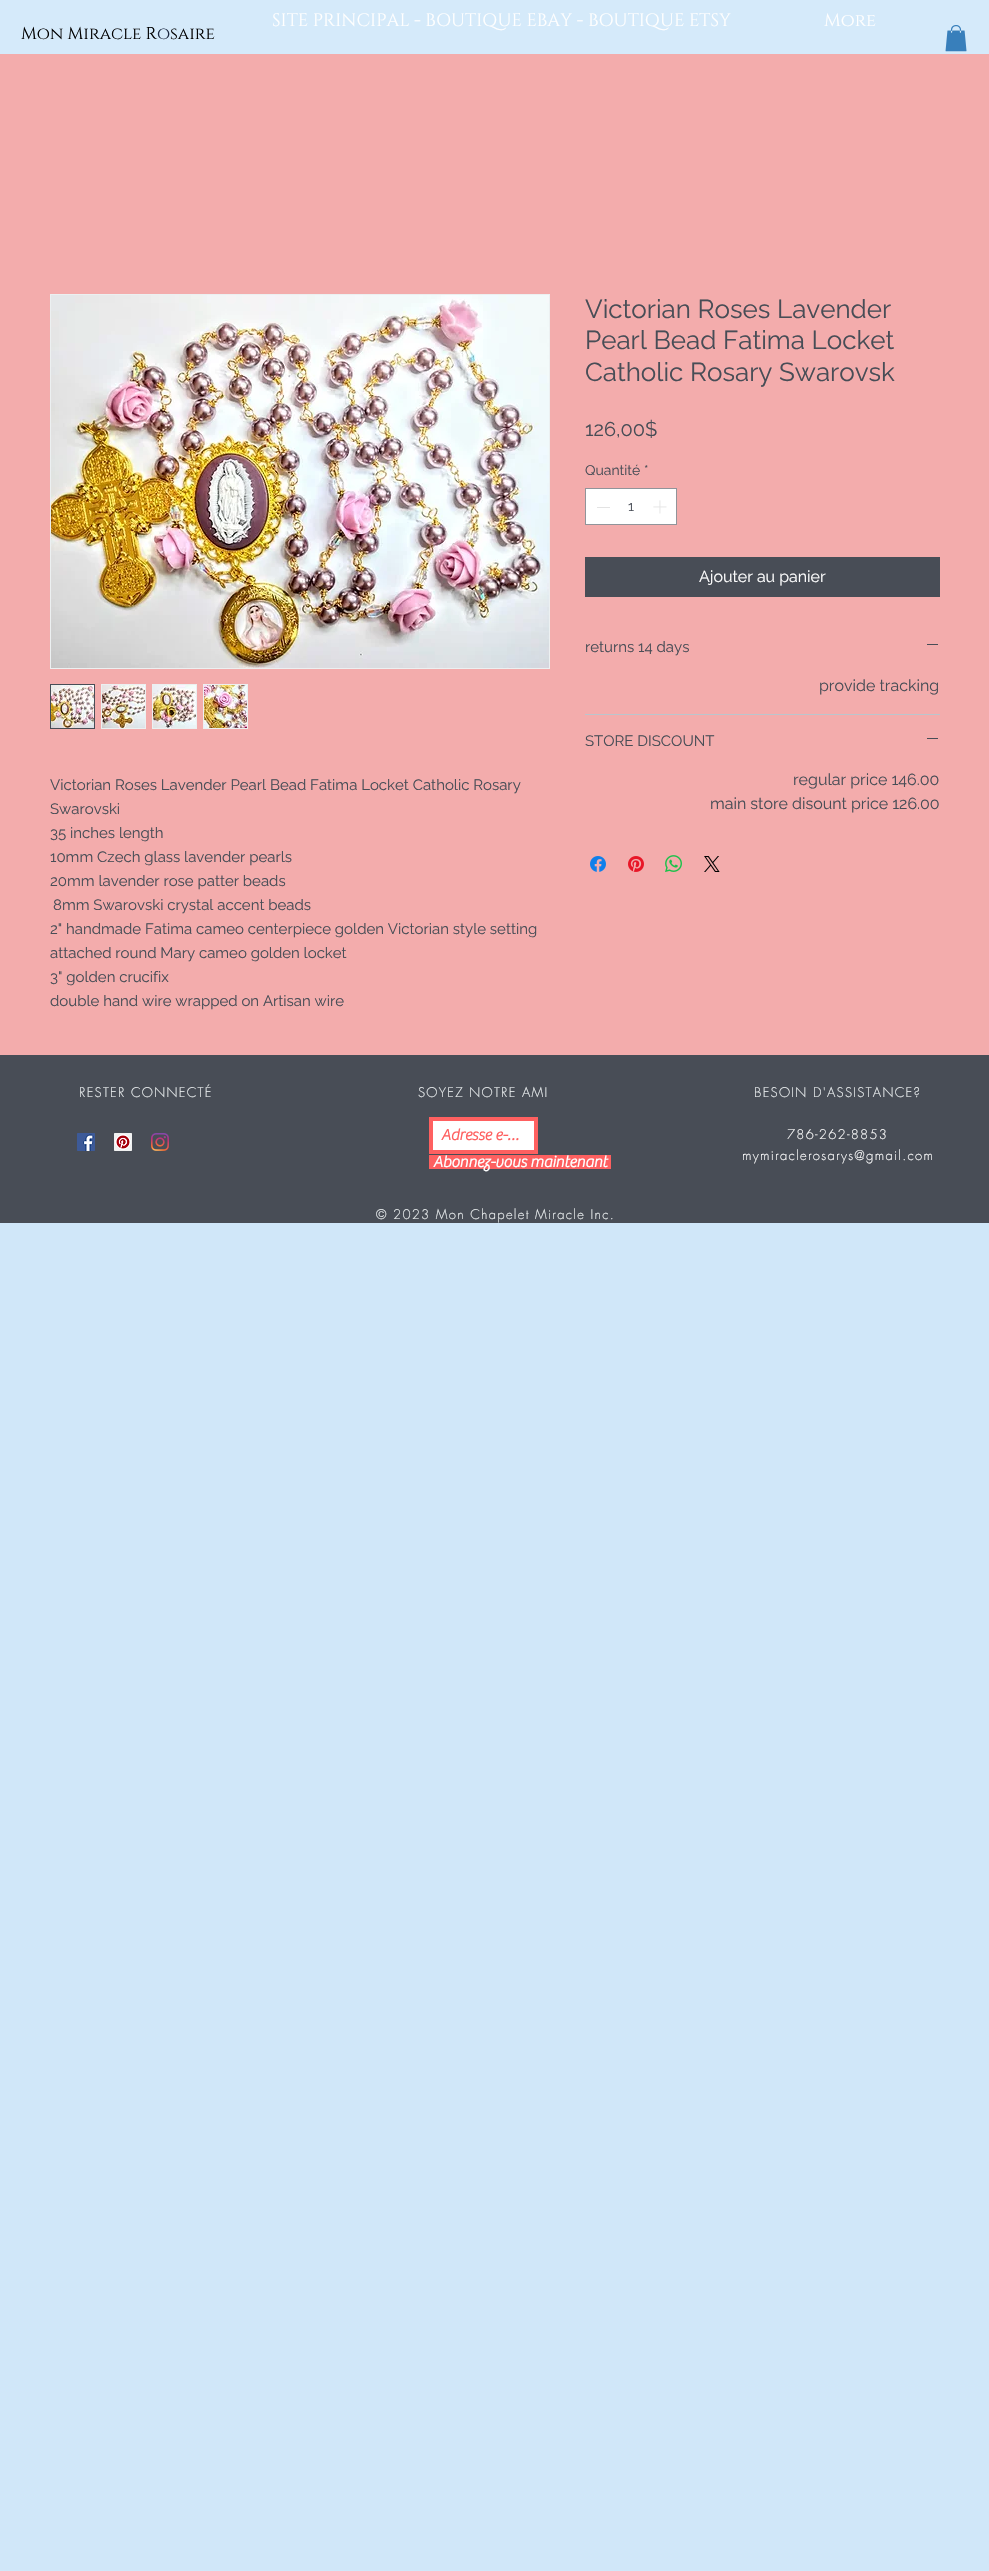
void draw(SkCanvas* canvas) {
	SkPaint paint;
	paint.setAntiAlias(true);
	auto spacedText = [&](const char* s, float x, float y, const SkFont& font, const SkPaint& ink, float letter, float word) {
		std::vector<SkGlyphID> glyphs(font.countText(s, strlen(s), SkTextEncoding::kUTF8));
		std::vector<float> xs(glyphs.size());
		font.textToGlyphs(s, strlen(s), SkTextEncoding::kUTF8, glyphs);
		font.getXPos(glyphs, xs, x);
		float extra = 0;
		for (size_t i = 0; i < glyphs.size(); i++) {
			xs[i] += extra;
			extra += letter + word * (glyphs[i] == font.unicharToGlyph(' '));
		}
		canvas->drawTextBlob(SkTextBlob::MakeFromPosHGlyphs(glyphs, xs, y, font), 0, 0, ink);
	};
	canvas->clear(0xffd0e7f9);
	paint.setColor(0xffd5eafa);
	canvas->drawRect(SkRect::MakeXYWH(0, 0, 989, 54), paint);
	SkFont f1(fontMgr->matchFamilyStyle("Cinzel", SkFontStyle::Normal()), 18);
	f1.setSubpixel(true);
	paint.setColor(0xffffffff);
	canvas->drawString("SITE PRINCIPAL - BOUTIQUE EBAY - BOUTIQUE ETSY", 272, 26, f1, paint);
	canvas->drawString("More", 824, 26, f1, paint);
	SkFont f2(fontMgr->matchFamilyStyle("Cinzel", SkFontStyle::Normal()), 17);
	f2.setSubpixel(true);
	paint.setColor(0xff000000);
	canvas->drawString("Mon Miracle R", 21, 39, f2, paint);
	paint.setColor(0xff1b2840);
	canvas->drawString("o", 157, 39, f2, paint);
	paint.setColor(0xff000000);
	canvas->drawString("saire", 170, 39, f2, paint);
	canvas->drawImageRect(SkImages::DeferredFromEncodedData(SkData::MakeFromFileName("img1.png")), SkRect::MakeXYWH(945, 25, 22, 27), SkSamplingOptions());
	paint.setColor(0xfff3acac);
	canvas->drawRect(SkRect::MakeXYWH(0, 54, 989, 1001), paint);
	SkFont f3(fontMgr->matchFamilyStyle("Raleway", SkFontStyle::Normal()), 26);
	f3.setSubpixel(true);
	paint.setColor(0xff484d56);
	canvas->drawString("Victorian Roses Lavender", 585, 318, f3, paint);
	canvas->drawString("Pearl Bead Fatima Locket", 585, 349, f3, paint);
	canvas->drawString("Catholic Rosary Swarovsk", 585, 381, f3, paint);
	SkFont f4(fontMgr->matchFamilyStyle("Raleway", SkFontStyle::Normal()), 20);
	f4.setSubpixel(true);
	canvas->drawString("126,00$", 585, 436, f4, paint);
	SkFont f5(fontMgr->matchFamilyStyle("Raleway", SkFontStyle::Normal()), 14);
	f5.setSubpixel(true);
	canvas->drawString("Quantité", 585, 475, f5, paint);
	canvas->drawString("*", 644, 475, f5, paint);
	paint.setColor(0xffffffff);
	canvas->drawRect(SkRect::MakeXYWH(585.5, 488.5, 91, 36), paint);
	paint.setStroke(true);
	paint.setStrokeWidth(1);
	paint.setColor(0xff91949a);
	canvas->drawRect(SkRect::MakeXYWH(585.5, 488.5, 91, 36), paint);
	paint.setStroke(false);
	paint.setColor(0xffe3e3e3);
	canvas->drawRect(SkRect::MakeXYWH(597, 507, 13, 1), paint);
	paint.setColor(0xff484d56);
	canvas->drawString("1", 628, 511, f5, paint);
	canvas->drawImageRect(SkImages::DeferredFromEncodedData(SkData::MakeFromFileName("img2.png")), SkRect::MakeXYWH(653, 500, 14, 14), SkSamplingOptions());
	canvas->drawRect(SkRect::MakeXYWH(585, 557, 355, 40), paint);
	SkFont f6(fontMgr->matchFamilyStyle("Raleway", SkFontStyle::Normal()), 16);
	f6.setSubpixel(true);
	paint.setColor(0xffffffff);
	canvas->drawString("Ajouter au panier", 699, 582, f6, paint);
	paint.setColor(0xffbac5cd);
	canvas->drawRect(SkRect::MakeXYWH(585, 714, 355, 1), paint);
	SkFont f7(fontMgr->matchFamilyStyle("Raleway", SkFontStyle::Normal()), 15);
	f7.setSubpixel(true);
	paint.setColor(0xff484d56);
	canvas->drawString("returns 14 days", 585, 652, f7, paint);
	canvas->drawRect(SkRect::MakeXYWH(927, 644, 11, 1), paint);
	canvas->drawString("provide tracking", 819, 691, f6, paint);
	canvas->drawString("STORE DISCOUNT", 585, 746, f7, paint);
	canvas->drawRect(SkRect::MakeXYWH(927, 738, 11, 1), paint);
	canvas->drawString("regular price 146.00", 793, 785, f6, paint);
	canvas->drawString("main store disount price 126.00", 710, 809, f6, paint);
	canvas->drawImageRect(SkImages::DeferredFromEncodedData(SkData::MakeFromFileName("img3.png")), SkRect::MakeXYWH(590, 856, 16, 16), SkSamplingOptions());
	canvas->drawImageRect(SkImages::DeferredFromEncodedData(SkData::MakeFromFileName("img4.png")), SkRect::MakeXYWH(628, 856, 16, 16), SkSamplingOptions());
	canvas->drawImageRect(SkImages::DeferredFromEncodedData(SkData::MakeFromFileName("img5.png")), SkRect::MakeXYWH(665, 855, 17, 17), SkSamplingOptions());
	canvas->drawImageRect(SkImages::DeferredFromEncodedData(SkData::MakeFromFileName("img6.png")), SkRect::MakeXYWH(704, 856, 16, 16), SkSamplingOptions());
	paint.setStroke(true);
	paint.setColor(0xffecf0f1);
	canvas->drawRect(SkRect::MakeXYWH(50.5, 294.5, 499, 374), paint);
	canvas->drawImageRect(SkImages::DeferredFromEncodedData(SkData::MakeFromFileName("img7.png")), SkRect::MakeXYWH(51, 295, 498, 373), SkSamplingOptions());
	paint.setColor(0xff484d56);
	canvas->drawRect(SkRect::MakeXYWH(50.5, 684.5, 44, 44), paint);
	canvas->drawImageRect(SkImages::DeferredFromEncodedData(SkData::MakeFromFileName("img8.png")), SkRect::MakeXYWH(51, 685, 43, 43), SkSamplingOptions());
	paint.setColor(0xffecf0f1);
	canvas->drawRect(SkRect::MakeXYWH(101.5, 684.5, 44, 44), paint);
	canvas->drawImageRect(SkImages::DeferredFromEncodedData(SkData::MakeFromFileName("img9.png")), SkRect::MakeXYWH(102, 685, 43, 43), SkSamplingOptions());
	canvas->drawRect(SkRect::MakeXYWH(152.5, 684.5, 44, 44), paint);
	canvas->drawImageRect(SkImages::DeferredFromEncodedData(SkData::MakeFromFileName("img10.png")), SkRect::MakeXYWH(153, 685, 43, 43), SkSamplingOptions());
	canvas->drawRect(SkRect::MakeXYWH(203.5, 684.5, 44, 44), paint);
	canvas->drawImageRect(SkImages::DeferredFromEncodedData(SkData::MakeFromFileName("img11.png")), SkRect::MakeXYWH(204, 685, 43, 43), SkSamplingOptions());
	paint.setStroke(false);
	paint.setColor(0xff484d56);
	canvas->drawString("Victorian Roses Lavender Pearl Bead Fatima Locket Catholic Rosary", 50, 790, f7, paint);
	canvas->drawString("Swarovski", 50, 814, f7, paint);
	canvas->drawString("35 inches length", 50, 838, f7, paint);
	canvas->drawString("10mm Czech glass lavender pearls", 50, 862, f7, paint);
	canvas->drawString("20mm lavender rose patter beads", 50, 886, f7, paint);
	canvas->drawString("8mm Swarovski crystal accent beads", 53, 910, f7, paint);
	canvas->drawString("2\" handmade Fatima cameo centerpiece golden Victorian style setting", 50, 934, f7, paint);
	canvas->drawString("attached round Mary cameo golden locket", 50, 958, f7, paint);
	canvas->drawString("3\" golden crucifix", 50, 982, f7, paint);
	canvas->drawString("double hand wire wrapped on Artisan wire", 50, 1006, f7, paint);
	canvas->drawRect(SkRect::MakeXYWH(0, 1055, 989, 168), paint);
	SkFont f8(fontMgr->matchFamilyStyle("futura", SkFontStyle(300, SkFontStyle::kNormal_Width, SkFontStyle::kUpright_Slant)), 13);
	f8.setSubpixel(true);
	paint.setColor(0xffecf0f1);
	spacedText("RESTER CONNECTÉ", 79, 1097, f8, paint, 1.3, 0);
	spacedText("SOYEZ NOTRE AMI", 418, 1097, f8, paint, 1.3, 0);
	spacedText("BESOIN D'ASSISTANCE?", 754, 1097, f8, paint, 1.3, 0);
	paint.setColor(0xffffffff);
	spacedText("786-262-8853", 787, 1139, f8, paint, 1.3, 0);
	spacedText("mymiraclerosarys@gmail.com", 742, 1160, f8, paint, 1.3, 0);
	canvas->drawImageRect(SkImages::DeferredFromEncodedData(SkData::MakeFromFileName("img12.png")), SkRect::MakeXYWH(77, 1133, 18, 18), SkSamplingOptions());
	canvas->drawImageRect(SkImages::DeferredFromEncodedData(SkData::MakeFromFileName("img13.png")), SkRect::MakeXYWH(114, 1133, 18, 18), SkSamplingOptions());
	canvas->drawImageRect(SkImages::DeferredFromEncodedData(SkData::MakeFromFileName("img14.png")), SkRect::MakeXYWH(151, 1133, 18, 18), SkSamplingOptions());
	canvas->drawRect(SkRect::MakeXYWH(431, 1119, 105, 33), paint);
	paint.setStroke(true);
	paint.setStrokeWidth(4);
	paint.setColor(0xfffe6060);
	canvas->drawRect(SkRect::MakeXYWH(431, 1119, 105, 33), paint);
	SkFont f9(fontMgr->matchFamilyStyle("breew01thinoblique", SkFontStyle::Bold()), 16);
	f9.setSubpixel(true);
	paint.setStroke(false);
	canvas->drawString("Adresse e-…", 441, 1140, f9, paint);
	canvas->drawRect(SkRect::MakeXYWH(429, 1155, 182, 14), paint);
	paint.setColor(0xffffffff);
	canvas->drawString("Abonnez-vous maintenant", 433, 1167, f9, paint);
	paint.setColor(0xffecf0f1);
	spacedText("© 2023 Mon Chapelet Miracle Inc.", 376, 1219, f8, paint, 1.3, 0);
}
